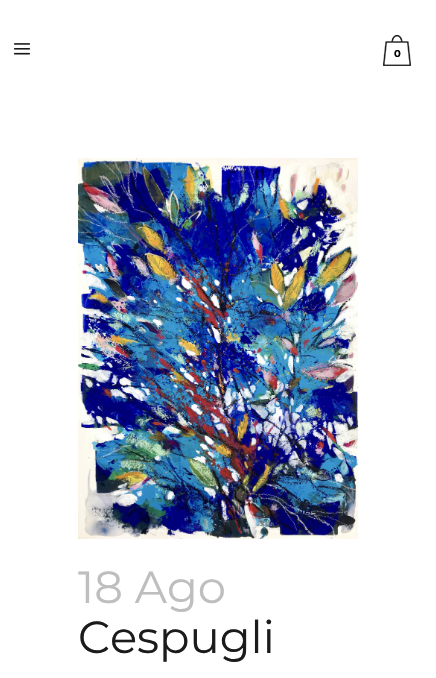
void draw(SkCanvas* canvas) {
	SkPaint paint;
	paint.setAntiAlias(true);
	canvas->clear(0xffffffff);
	canvas->drawImageRect(SkImages::DeferredFromEncodedData(SkData::MakeFromFileName("img1.png")), SkRect::MakeXYWH(13, 43, 18, 12), SkSamplingOptions());
	canvas->drawImageRect(SkImages::DeferredFromEncodedData(SkData::MakeFromFileName("img2.png")), SkRect::MakeXYWH(383, 35, 28, 31), SkSamplingOptions());
	SkFont f1(fontMgr->matchFamilyStyle("Montserrat", SkFontStyle::Bold()), 10);
	f1.setSubpixel(true);
	paint.setColor(0xff000000);
	canvas->drawString("0", 394, 57, f1, paint);
	canvas->drawImageRect(SkImages::DeferredFromEncodedData(SkData::MakeFromFileName("img3.png")), SkRect::MakeXYWH(78, 158, 280, 381), SkSamplingOptions());
	SkFont f2(fontMgr->matchFamilyStyle("Montserrat", SkFontStyle::Normal()), 45);
	f2.setSubpixel(true);
	paint.setColor(0xffbebebe);
	canvas->drawString("18 Ago", 78, 603, f2, paint);
	paint.setColor(0xff1b1b1b);
	canvas->drawString("Cespugli", 78, 653, f2, paint);
}
